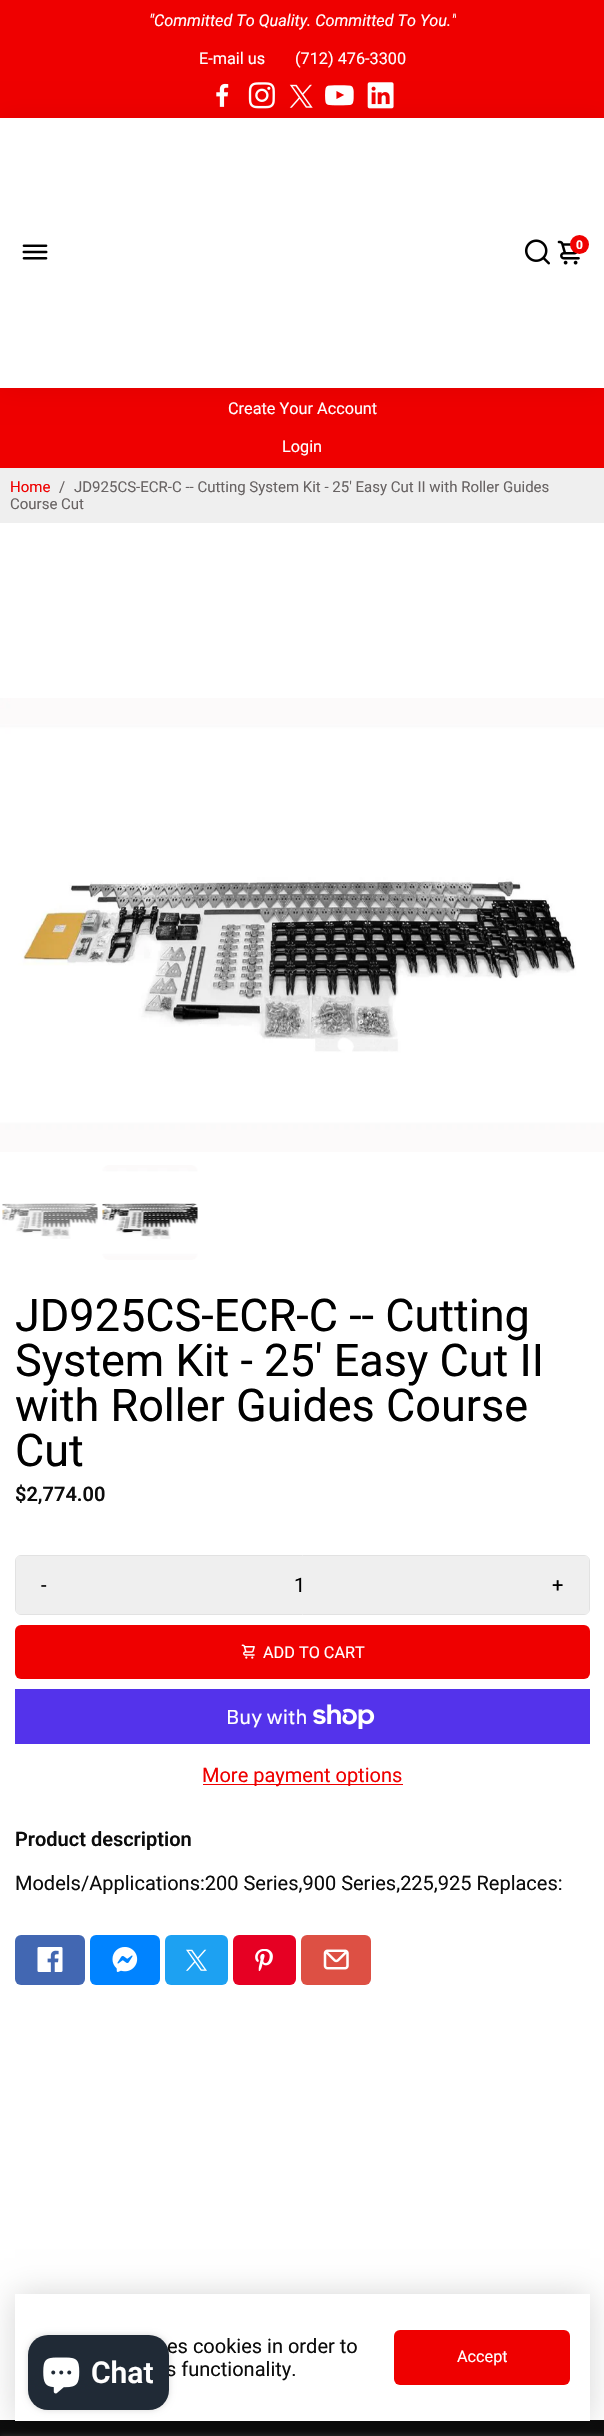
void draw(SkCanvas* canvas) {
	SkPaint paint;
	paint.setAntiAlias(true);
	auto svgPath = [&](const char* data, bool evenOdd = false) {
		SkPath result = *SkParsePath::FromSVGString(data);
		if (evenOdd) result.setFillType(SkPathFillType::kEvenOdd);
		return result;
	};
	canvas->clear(0xffffffff);
	paint.setColor(0xffef0000);
	canvas->drawRect(SkRect::MakeXYWH(0, 0, 604, 118), paint);
	canvas->save();
	canvas->clipRect(SkRect::MakeXYWH(149, 3, 307, 37));
	SkFont f1(fontMgr->matchFamilyStyle("Roboto", SkFontStyle::Italic()), 16.25);
	f1.setSubpixel(true);
	paint.setColor(0xffffffff);
	canvas->drawString("\"Committed To Quality. Committed To You.\"", 149, 26, f1, paint);
	canvas->restore();
	SkFont f2(fontMgr->matchFamilyStyle("Roboto", SkFontStyle::Normal()), 16.25);
	f2.setSubpixel(true);
	canvas->drawString("E-mail us", 199, 64, f2, paint);
	canvas->drawString("(712) 476-3300", 295, 64, f2, paint);
	canvas->drawImageRect(SkImages::DeferredFromEncodedData(SkData::MakeFromFileName("img1.png")), SkRect::MakeXYWH(216, 83, 13, 24), SkSamplingOptions());
	canvas->drawImageRect(SkImages::DeferredFromEncodedData(SkData::MakeFromFileName("img2.png")), SkRect::MakeXYWH(248, 82, 27, 27), SkSamplingOptions());
	canvas->drawImageRect(SkImages::DeferredFromEncodedData(SkData::MakeFromFileName("img3.png")), SkRect::MakeXYWH(289, 84, 24, 24), SkSamplingOptions());
	canvas->drawImageRect(SkImages::DeferredFromEncodedData(SkData::MakeFromFileName("img4.png")), SkRect::MakeXYWH(325, 85, 29, 21), SkSamplingOptions());
	canvas->drawImageRect(SkImages::DeferredFromEncodedData(SkData::MakeFromFileName("img5.png")), SkRect::MakeXYWH(367, 82, 27, 27), SkSamplingOptions());
	paint.setColor(0xffef0000);
	canvas->drawRect(SkRect::MakeXYWH(0, 388, 604, 80), paint);
	paint.setColor(0x0f000000);
	paint.setMaskFilter(SkMaskFilter::MakeBlur(kNormal_SkBlurStyle, 12.5));
	canvas->drawRect(SkRect::MakeXYWH(0, 118, 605, 270), paint);
	paint.setMaskFilter(nullptr);
	paint.setColor(0xffffffff);
	canvas->drawRect(SkRect::MakeXYWH(0, 118, 604, 270), paint);
	canvas->drawImageRect(SkImages::DeferredFromEncodedData(SkData::MakeFromFileName("img6.png")), SkRect::MakeXYWH(22, 244, 26, 16), SkSamplingOptions());
	canvas->drawImageRect(SkImages::DeferredFromEncodedData(SkData::MakeFromFileName("img7.png")), SkRect::MakeXYWH(524, 239, 26, 26), SkSamplingOptions());
	canvas->drawImageRect(SkImages::DeferredFromEncodedData(SkData::MakeFromFileName("img8.png")), SkRect::MakeXYWH(557, 240, 23, 25), SkSamplingOptions());
	paint.setColor(0xffef0000);
	canvas->drawCircle(579.5, 244.5, 9.5, paint);
	SkFont f3(fontMgr->matchFamilyStyle("Roboto", SkFontStyle::Bold()), 12);
	f3.setSubpixel(true);
	paint.setColor(0xffffffff);
	canvas->drawString("0", 576, 249, f3, paint);
	canvas->drawString("Create Your Account", 228, 414, f2, paint);
	canvas->drawString("Login", 282, 452, f2, paint);
	paint.setColor(0xffefefef);
	canvas->drawRect(SkRect::MakeXYWH(0, 468, 604, 55), paint);
	SkFont f4(fontMgr->matchFamilyStyle("Roboto", SkFontStyle::Normal()), 15);
	f4.setSubpixel(true);
	paint.setColor(0xffef0000);
	canvas->drawString("Home", 10, 492, f4, paint);
	paint.setColor(0xff686363);
	canvas->drawString("/", 59, 492, f4, paint);
	canvas->drawString("JD925CS-ECR-C -- Cutting System Kit - 25' Easy Cut II with Roller Guides", 74, 492, f4, paint);
	canvas->drawString("Course Cut", 10, 509, f4, paint);
	canvas->drawImageRect(SkImages::DeferredFromEncodedData(SkData::MakeFromFileName("img9.png")), SkRect::MakeXYWH(0, 698, 604, 454), SkSamplingOptions());
	canvas->drawImageRect(SkImages::DeferredFromEncodedData(SkData::MakeFromFileName("img10.png")), SkRect::MakeXYWH(2, 1203, 96, 36), SkSamplingOptions());
	canvas->drawImageRect(SkImages::DeferredFromEncodedData(SkData::MakeFromFileName("img11.png")), SkRect::MakeXYWH(102, 1165, 96, 95), SkSamplingOptions());
	SkFont f5(fontMgr->matchFamilyStyle("Roboto", SkFontStyle::Normal()), 45);
	f5.setSubpixel(true);
	paint.setColor(0xff000000);
	canvas->drawString("JD925CS-ECR-C -- Cutting", 15, 1331, f5, paint);
	canvas->drawString("System Kit - 25' Easy Cut II", 15, 1376, f5, paint);
	canvas->drawString("with Roller Guides Course", 15, 1421, f5, paint);
	canvas->drawString("Cut", 15, 1466, f5, paint);
	SkFont f6(fontMgr->matchFamilyStyle("Roboto", SkFontStyle(600, SkFontStyle::kNormal_Width, SkFontStyle::kUpright_Slant)), 20);
	f6.setSubpixel(true);
	paint.setColor(0xff0c0c0c);
	canvas->drawString("$2,774.00", 15, 1501, f6, paint);
	paint.setStroke(true);
	paint.setStrokeWidth(1);
	paint.setColor(0xffe2e2e2);
	canvas->drawRoundRect(SkRect::MakeXYWH(15.5, 1555.5, 574, 59), 5.5, 5.5, paint);
	paint.setStroke(false);
	paint.setColor(0xffefefef);
	canvas->drawPath(svgPath("M21 1556H71V1614H21C18 1614 16 1612 16 1609V1561C16 1558 18 1556 21 1556Z"), paint);
	SkFont f7(fontMgr->matchFamilyStyle("Roboto", SkFontStyle::Normal()), 20);
	f7.setSubpixel(true);
	paint.setColor(0xff000000);
	canvas->drawString("-", 41, 1592, f7, paint);
	paint.setColor(0xffefefef);
	canvas->drawRect(SkRect::MakeXYWH(71, 1556, 457, 58), paint);
	paint.setColor(0xff000000);
	canvas->drawString("1", 294, 1592, f7, paint);
	paint.setColor(0xffefefef);
	canvas->drawPath(svgPath("M528 1556H584C587 1556 589 1558 589 1561V1609C589 1612 587 1614 584 1614H528Z"), paint);
	paint.setColor(0xff000000);
	canvas->drawString("+", 552, 1592, f7, paint);
	paint.setColor(0xffef0000);
	canvas->drawRoundRect(SkRect::MakeXYWH(15, 1625, 575, 54), 6, 6, paint);
	canvas->drawImageRect(SkImages::DeferredFromEncodedData(SkData::MakeFromFileName("img12.png")), SkRect::MakeXYWH(241, 1644, 14, 15), SkSamplingOptions());
	paint.setColor(0xffffffff);
	canvas->drawString("ADD TO CART", 263, 1658, f2, paint);
	paint.setColor(0xff5433eb);
	canvas->drawRect(SkRect::MakeXYWH(15, 1689, 575, 55), paint);
	SkFont f8(fontMgr->matchFamilyStyle("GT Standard", SkFontStyle::Normal()), 20);
	f8.setSubpixel(true);
	paint.setColor(0xffffffff);
	canvas->drawString("Buy with", 226, 1724, f8, paint);
	canvas->drawImageRect(SkImages::DeferredFromEncodedData(SkData::MakeFromFileName("img13.png")), SkRect::MakeXYWH(313, 1704, 62, 25), SkSamplingOptions());
	paint.setColor(0xffef0000);
	canvas->drawRect(SkRect::MakeXYWH(203, 1784, 200, 1), paint);
	canvas->drawString("More payment options", 202, 1782, f7, paint);
	paint.setColor(0xff0c0c0c);
	canvas->drawString("Product description", 15, 1846, f6, paint);
	canvas->drawString("Models/Applications:200 Series,900 Series,225,925 Replaces:", 15, 1890, f7, paint);
	paint.setColor(0xff4267b2);
	canvas->drawRoundRect(SkRect::MakeXYWH(15, 1935, 70, 50), 6, 6, paint);
	canvas->drawImageRect(SkImages::DeferredFromEncodedData(SkData::MakeFromFileName("img14.png")), SkRect::MakeXYWH(37, 1947, 26, 25), SkSamplingOptions());
	paint.setColor(0xff0083ff);
	canvas->drawRoundRect(SkRect::MakeXYWH(90, 1935, 70, 50), 6, 6, paint);
	canvas->drawImageRect(SkImages::DeferredFromEncodedData(SkData::MakeFromFileName("img15.png")), SkRect::MakeXYWH(112, 1947, 26, 25), SkSamplingOptions());
	paint.setColor(0xff1da1f2);
	canvas->drawRoundRect(SkRect::MakeXYWH(165, 1935, 63, 50), 6, 6, paint);
	canvas->drawImageRect(SkImages::DeferredFromEncodedData(SkData::MakeFromFileName("img16.png")), SkRect::MakeXYWH(186, 1949, 21, 22), SkSamplingOptions());
	paint.setColor(0xffe60023);
	canvas->drawRoundRect(SkRect::MakeXYWH(233, 1935, 63, 50), 6, 6, paint);
	canvas->drawImageRect(SkImages::DeferredFromEncodedData(SkData::MakeFromFileName("img17.png")), SkRect::MakeXYWH(255, 1949, 18, 22), SkSamplingOptions());
	paint.setColor(0xffdd5044);
	canvas->drawRoundRect(SkRect::MakeXYWH(301, 1935, 70, 50), 6, 6, paint);
	canvas->drawImageRect(SkImages::DeferredFromEncodedData(SkData::MakeFromFileName("img18.png")), SkRect::MakeXYWH(323, 1949, 26, 21), SkSamplingOptions());
	paint.setColor(0xff0c0c0c);
	canvas->drawRect(SkRect::MakeXYWH(0, 2420, 604, 16), paint);
	paint.setColor(0x29000000);
	paint.setMaskFilter(SkMaskFilter::MakeBlur(kNormal_SkBlurStyle, 15));
	canvas->drawRect(SkRect::MakeXYWH(15, 2294, 575, 127), paint);
	paint.setMaskFilter(nullptr);
	paint.setColor(0xffffffff);
	canvas->drawRect(SkRect::MakeXYWH(15, 2294, 575, 127), paint);
	paint.setColor(0x26000000);
	paint.setMaskFilter(SkMaskFilter::MakeBlur(kNormal_SkBlurStyle, 3));
	canvas->drawRoundRect(SkRect::MakeXYWH(28, 2335, 141, 75), 20, 20, paint);
	paint.setMaskFilter(nullptr);
	paint.setColor(0xff0c0c0c);
	canvas->drawString("es cookies in order to", 167, 2353, f7, paint);
	canvas->drawString("s functionality.", 166, 2376, f7, paint);
	paint.setColor(0xff202a36);
	canvas->drawRoundRect(SkRect::MakeXYWH(28, 2335, 141, 75), 20, 20, paint);
	canvas->drawImageRect(SkImages::DeferredFromEncodedData(SkData::MakeFromFileName("img19.png")), SkRect::MakeXYWH(43, 2357, 37, 37), SkSamplingOptions());
	SkFont f9(fontMgr->matchFamilyStyle("Roboto", SkFontStyle(600, SkFontStyle::kNormal_Width, SkFontStyle::kUpright_Slant)), 30);
	f9.setSubpixel(true);
	paint.setColor(0xffffffff);
	canvas->drawString("Chat", 91, 2383, f9, paint);
	paint.setColor(0xffef0000);
	canvas->drawRoundRect(SkRect::MakeXYWH(394, 2330, 176, 55), 6, 6, paint);
	paint.setColor(0xffffffff);
	canvas->drawString("Accept", 457, 2362, f2, paint);
	paint.setColor(0x40808080);
	paint.setMaskFilter(SkMaskFilter::MakeBlur(kNormal_SkBlurStyle, 2.5));
	canvas->drawRect(SkRect::MakeXYWH(0, 2435, 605, 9), paint);
	paint.setMaskFilter(nullptr);
}
